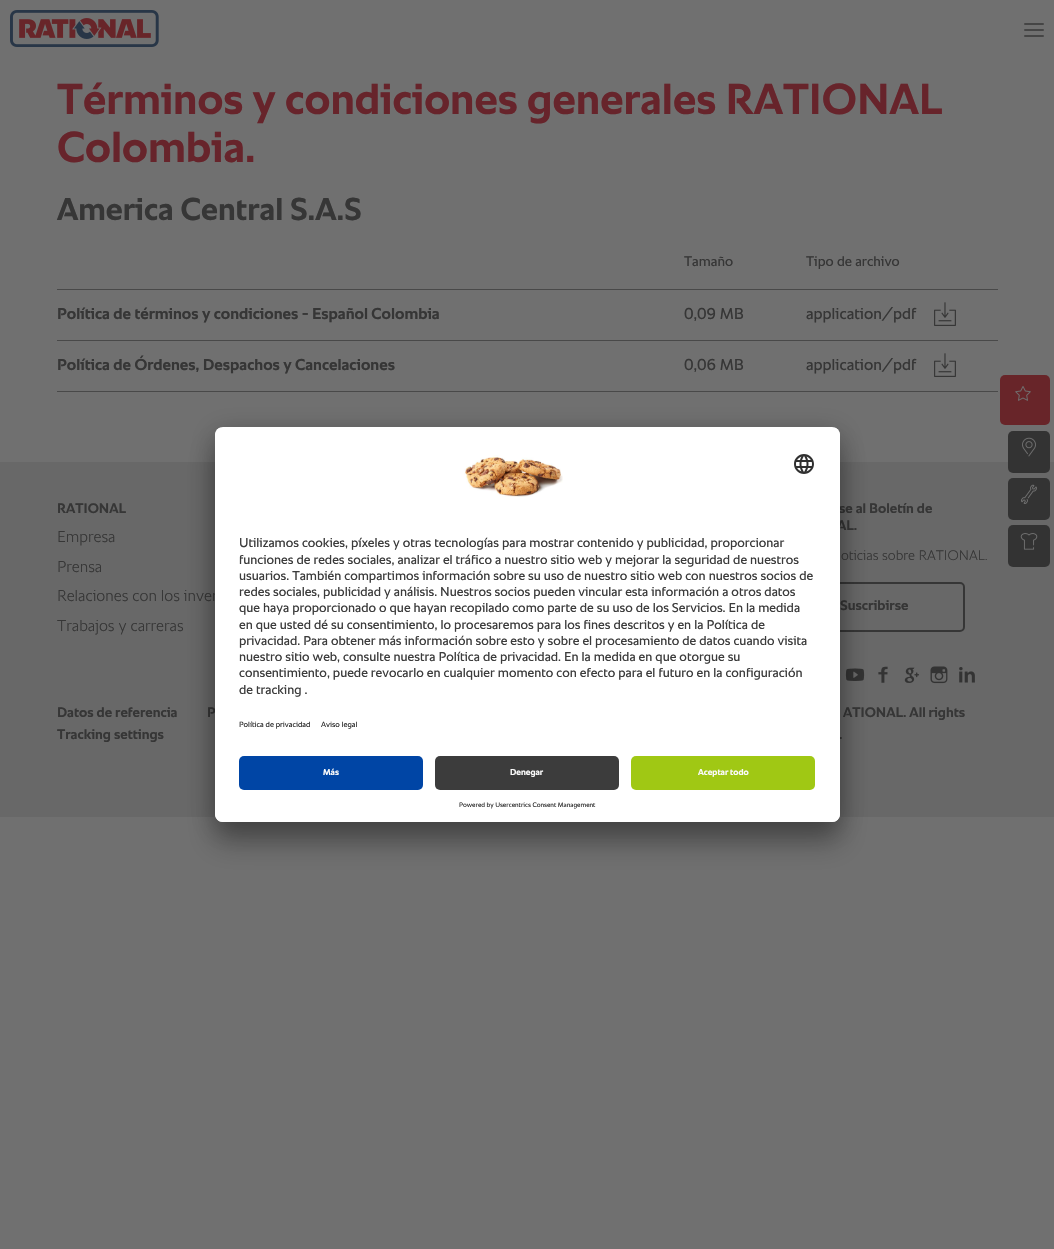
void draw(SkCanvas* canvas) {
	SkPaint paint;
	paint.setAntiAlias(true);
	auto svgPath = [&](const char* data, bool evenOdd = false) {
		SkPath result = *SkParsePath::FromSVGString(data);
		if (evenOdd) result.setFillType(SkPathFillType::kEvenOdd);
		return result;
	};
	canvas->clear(0xff707070);
	canvas->drawImageRect(SkImages::DeferredFromEncodedData(SkData::MakeFromFileName("img1.png")), SkRect::MakeXYWH(10, 10, 149, 37), SkSamplingOptions());
	paint.setColor(0xff454545);
	canvas->drawRoundRect(SkRect::MakeXYWH(1024, 23, 20, 2), 1, 1, paint);
	canvas->drawRoundRect(SkRect::MakeXYWH(1024, 29, 20, 2), 1, 1, paint);
	canvas->drawRoundRect(SkRect::MakeXYWH(1024, 35, 20, 2), 1, 1, paint);
	SkFont f1(fontMgr->matchFamilyStyle("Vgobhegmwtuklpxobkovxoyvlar", SkFontStyle::Bold()), 44);
	f1.setSubpixel(true);
	paint.setColor(0xff67242b);
	canvas->drawString("Términos y condiciones generales RATIONAL", 57, 114, f1, paint);
	canvas->drawString("Colombia.", 57, 162, f1, paint);
	SkFont f2(fontMgr->matchFamilyStyle("Vgobhegmwtuklpxobkovxoyvlar", SkFontStyle::Bold()), 32);
	f2.setSubpixel(true);
	paint.setColor(0xff363636);
	canvas->drawString("America Central S.A.S", 57, 220, f2, paint);
	paint.setColor(0xff494949);
	canvas->drawRect(SkRect::MakeXYWH(57, 289, 941, 1), paint);
	SkFont f3(fontMgr->matchFamilyStyle("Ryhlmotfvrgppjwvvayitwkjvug", SkFontStyle::Normal()), 14);
	f3.setSubpixel(true);
	paint.setColor(0xff363636);
	canvas->drawString("Tamaño", 684, 266, f3, paint);
	canvas->drawString("Tipo de archivo", 806, 266, f3, paint);
	paint.setColor(0xff494949);
	canvas->drawRect(SkRect::MakeXYWH(57, 340, 941, 1), paint);
	SkFont f4(fontMgr->matchFamilyStyle("Vgobhegmwtuklpxobkovxoyvlar", SkFontStyle::Bold()), 16);
	f4.setSubpixel(true);
	paint.setColor(0xff363636);
	canvas->drawString("Política de términos y condiciones - Español Colombia", 57, 319, f4, paint);
	SkFont f5(fontMgr->matchFamilyStyle("Ryhlmotfvrgppjwvvayitwkjvug", SkFontStyle::Normal()), 16);
	f5.setSubpixel(true);
	canvas->drawString("0,09 MB", 684, 319, f5, paint);
	canvas->drawString("application/pdf", 806, 319, f5, paint);
	canvas->drawImageRect(SkImages::DeferredFromEncodedData(SkData::MakeFromFileName("img2.png")), SkRect::MakeXYWH(934, 302, 22, 24), SkSamplingOptions());
	paint.setColor(0xff494949);
	canvas->drawRect(SkRect::MakeXYWH(57, 391, 941, 1), paint);
	canvas->drawImageRect(SkImages::DeferredFromEncodedData(SkData::MakeFromFileName("img2.png")), SkRect::MakeXYWH(934, 353, 22, 24), SkSamplingOptions());
	paint.setColor(0xff363636);
	canvas->drawString("Política de Órdenes, Despachos y Cancelaciones", 57, 370, f4, paint);
	canvas->drawString("0,06 MB", 684, 370, f5, paint);
	canvas->drawString("application/pdf", 806, 370, f5, paint);
	paint.setColor(0xff682529);
	canvas->drawRoundRect(SkRect::MakeXYWH(1000, 375, 50, 50), 5, 5, paint);
	canvas->drawImageRect(SkImages::DeferredFromEncodedData(SkData::MakeFromFileName("img3.png")), SkRect::MakeXYWH(1015, 386, 16, 15), SkSamplingOptions());
	paint.setColor(0xff686868);
	canvas->drawRect(SkRect::MakeXYWH(0, 462, 1054, 355), paint);
	paint.setColor(0xff333333);
	canvas->drawRoundRect(SkRect::MakeXYWH(1008, 431, 42, 42), 5, 5, paint);
	canvas->drawImageRect(SkImages::DeferredFromEncodedData(SkData::MakeFromFileName("img4.png")), SkRect::MakeXYWH(1022, 437, 14, 20), SkSamplingOptions());
	canvas->drawRoundRect(SkRect::MakeXYWH(1008, 478, 42, 42), 5, 5, paint);
	canvas->drawImageRect(SkImages::DeferredFromEncodedData(SkData::MakeFromFileName("img5.png")), SkRect::MakeXYWH(1021, 484, 16, 20), SkSamplingOptions());
	canvas->drawRoundRect(SkRect::MakeXYWH(1008, 525, 42, 42), 5, 5, paint);
	canvas->drawImageRect(SkImages::DeferredFromEncodedData(SkData::MakeFromFileName("img6.png")), SkRect::MakeXYWH(1020, 533, 18, 17), SkSamplingOptions());
	SkFont f6(fontMgr->matchFamilyStyle("Vgobhegmwtuklpxobkovxoyvlar", SkFontStyle::Bold()), 14);
	f6.setSubpixel(true);
	paint.setColor(0xff363636);
	canvas->drawString("RATIONAL", 57, 513, f6, paint);
	SkFont f7(fontMgr->matchFamilyStyle("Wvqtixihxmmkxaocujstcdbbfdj", SkFontStyle(300, SkFontStyle::kNormal_Width, SkFontStyle::kUpright_Slant)), 16);
	f7.setSubpixel(true);
	canvas->drawString("Empresa", 57, 542, f7, paint);
	canvas->drawString("Prensa", 57, 572, f7, paint);
	canvas->drawString("Relaciones con los inver", 57, 601, f7, paint);
	canvas->drawString("Trabajos y carreras", 57, 631, f7, paint);
	canvas->drawString("se al Boletín de", 839, 513, f6, paint);
	canvas->drawString("AL.", 837, 530, f6, paint);
	SkFont f8(fontMgr->matchFamilyStyle("Wvqtixihxmmkxaocujstcdbbfdj", SkFontStyle(300, SkFontStyle::kNormal_Width, SkFontStyle::kUpright_Slant)), 14);
	f8.setSubpixel(true);
	canvas->drawString("oticias sobre RATIONAL.", 841, 560, f8, paint);
	paint.setStroke(true);
	paint.setStrokeWidth(2);
	canvas->drawRoundRect(SkRect::MakeXYWH(786, 583, 178, 48), 4, 4, paint);
	paint.setStroke(false);
	canvas->drawString("Suscribirse", 840, 610, f6, paint);
	canvas->drawImageRect(SkImages::DeferredFromEncodedData(SkData::MakeFromFileName("img7.png")), SkRect::MakeXYWH(845, 668, 20, 13), SkSamplingOptions());
	canvas->drawImageRect(SkImages::DeferredFromEncodedData(SkData::MakeFromFileName("img8.png")), SkRect::MakeXYWH(878, 666, 10, 17), SkSamplingOptions());
	canvas->drawImageRect(SkImages::DeferredFromEncodedData(SkData::MakeFromFileName("img9.png")), SkRect::MakeXYWH(904, 667, 16, 16), SkSamplingOptions());
	canvas->drawImageRect(SkImages::DeferredFromEncodedData(SkData::MakeFromFileName("img10.png")), SkRect::MakeXYWH(930, 666, 18, 18), SkSamplingOptions());
	canvas->drawImageRect(SkImages::DeferredFromEncodedData(SkData::MakeFromFileName("img11.png")), SkRect::MakeXYWH(959, 667, 16, 16), SkSamplingOptions());
	canvas->drawString("Datos de referencia", 57, 717, f6, paint);
	canvas->drawString("P", 207, 717, f6, paint);
	canvas->drawString("Tracking settings", 57, 739, f6, paint);
	canvas->drawString("ATIONAL. All rights", 843, 717, f6, paint);
	canvas->drawString(".", 839, 739, f6, paint);
	paint.setColor(0x4d000000);
	paint.setMaskFilter(SkMaskFilter::MakeBlur(kNormal_SkBlurStyle, 14));
	canvas->drawRoundRect(SkRect::MakeXYWH(215, 447, 625, 395), 8, 8, paint);
	paint.setMaskFilter(nullptr);
	paint.setColor(0x38000000);
	paint.setMaskFilter(SkMaskFilter::MakeBlur(kNormal_SkBlurStyle, 13));
	canvas->drawRoundRect(SkRect::MakeXYWH(215, 432, 625, 395), 8, 8, paint);
	paint.setMaskFilter(nullptr);
	paint.setColor(0xffffffff);
	canvas->drawRoundRect(SkRect::MakeXYWH(215, 427, 625, 395), 8, 8, paint);
	canvas->save();
	canvas->clipPath(svgPath("M223 427H832C836.5 427 840 430.5 840 435V814C840 818.5 836.5 822 832 822H223C218.5 822 215 818.5 215 814V435C215 430.5 218.5 427 223 427Z"), true);
	canvas->clipPath(svgPath("M223 427H832C836.5 427 840 430.5 840 435V748H215V435C215 430.5 218.5 427 223 427Z"), true);
	canvas->drawRect(SkRect::MakeXYWH(215, 428, 625, 320), paint);
	canvas->restore();
	canvas->drawImageRect(SkImages::DeferredFromEncodedData(SkData::MakeFromFileName("img12.png")), SkRect::MakeXYWH(464, 455, 99, 42), SkSamplingOptions());
	canvas->drawImageRect(SkImages::DeferredFromEncodedData(SkData::MakeFromFileName("img13.png")), SkRect::MakeXYWH(794, 454, 20, 20), SkSamplingOptions());
	SkFont f9(fontMgr->matchFamilyStyle("Ryhlmotfvrgppjwvvayitwkjvug", SkFontStyle::Normal()), 13);
	f9.setSubpixel(true);
	paint.setColor(0xff3c3c3c);
	canvas->drawString("Utilizamos cookies, píxeles y otras tecnologías para mostrar contenido y publicidad, proporcionar", 239, 547, f9, paint);
	canvas->drawString("funciones de redes sociales, analizar el tráfico a nuestro sitio web y mejorar la seguridad de nuestros", 239, 564, f9, paint);
	canvas->drawString("usuarios. También compartimos información sobre su uso de nuestro sitio web con nuestros socios de", 239, 580, f9, paint);
	canvas->drawString("redes sociales, publicidad y análisis. Nuestros socios pueden vincular esta información a otros datos", 239, 596, f9, paint);
	canvas->drawString("que haya proporcionado o que hayan recopilado como parte de su uso de los Servicios. En la medida", 239, 612, f9, paint);
	canvas->drawString("en que usted dé su consentimiento, lo procesaremos para los fines descritos y en la Política de", 239, 629, f9, paint);
	canvas->drawString("privacidad. Para obtener más información sobre esto y sobre el procesamiento de datos cuando visita", 239, 645, f9, paint);
	canvas->drawString("nuestro sitio web, consulte nuestra Política de privacidad. En la medida en que otorgue su", 239, 661, f9, paint);
	canvas->drawString("consentimiento, puede revocarlo en cualquier momento con efecto para el futuro en la configuración", 239, 677, f9, paint);
	canvas->drawString("de tracking .", 239, 694, f9, paint);
	SkFont f10(fontMgr->matchFamilyStyle("Ryhlmotfvrgppjwvvayitwkjvug", SkFontStyle::Normal()), 7.75);
	f10.setSubpixel(true);
	paint.setColor(0xff303030);
	canvas->drawString("Política de privacidad", 239, 727, f10, paint);
	canvas->drawString("Aviso legal", 321, 727, f10, paint);
	paint.setColor(0xffffffff);
	canvas->drawPath(svgPath("M215 748H840V814C840 818.5 836.5 822 832 822H223C218.5 822 215 818.5 215 814Z"), paint);
	paint.setColor(0xff0045a5);
	canvas->drawRoundRect(SkRect::MakeXYWH(239, 756, 184, 34), 5, 5, paint);
	SkFont f11(fontMgr->matchFamilyStyle("Vgobhegmwtuklpxobkovxoyvlar", SkFontStyle::Bold()), 8.75);
	f11.setSubpixel(true);
	paint.setColor(0xfffafafa);
	canvas->drawString("Más", 323, 775, f11, paint);
	paint.setColor(0xff3c3c3c);
	canvas->drawRoundRect(SkRect::MakeXYWH(435, 756, 184, 34), 5, 5, paint);
	paint.setColor(0xfffafafa);
	canvas->drawString("Denegar", 510, 775, f11, paint);
	paint.setColor(0xffa0c814);
	canvas->drawRoundRect(SkRect::MakeXYWH(631, 756, 184, 34), 5, 5, paint);
	paint.setColor(0xfffafafa);
	canvas->drawString("Aceptar todo", 698, 775, f11, paint);
	SkFont f12(fontMgr->matchFamilyStyle("Ryhlmotfvrgppjwvvayitwkjvug", SkFontStyle::Normal()), 6.6);
	f12.setSubpixel(true);
	paint.setColor(0xff303030);
	canvas->drawString("Powered by Usercentrics Consent Management", 459, 807, f12, paint);
}
